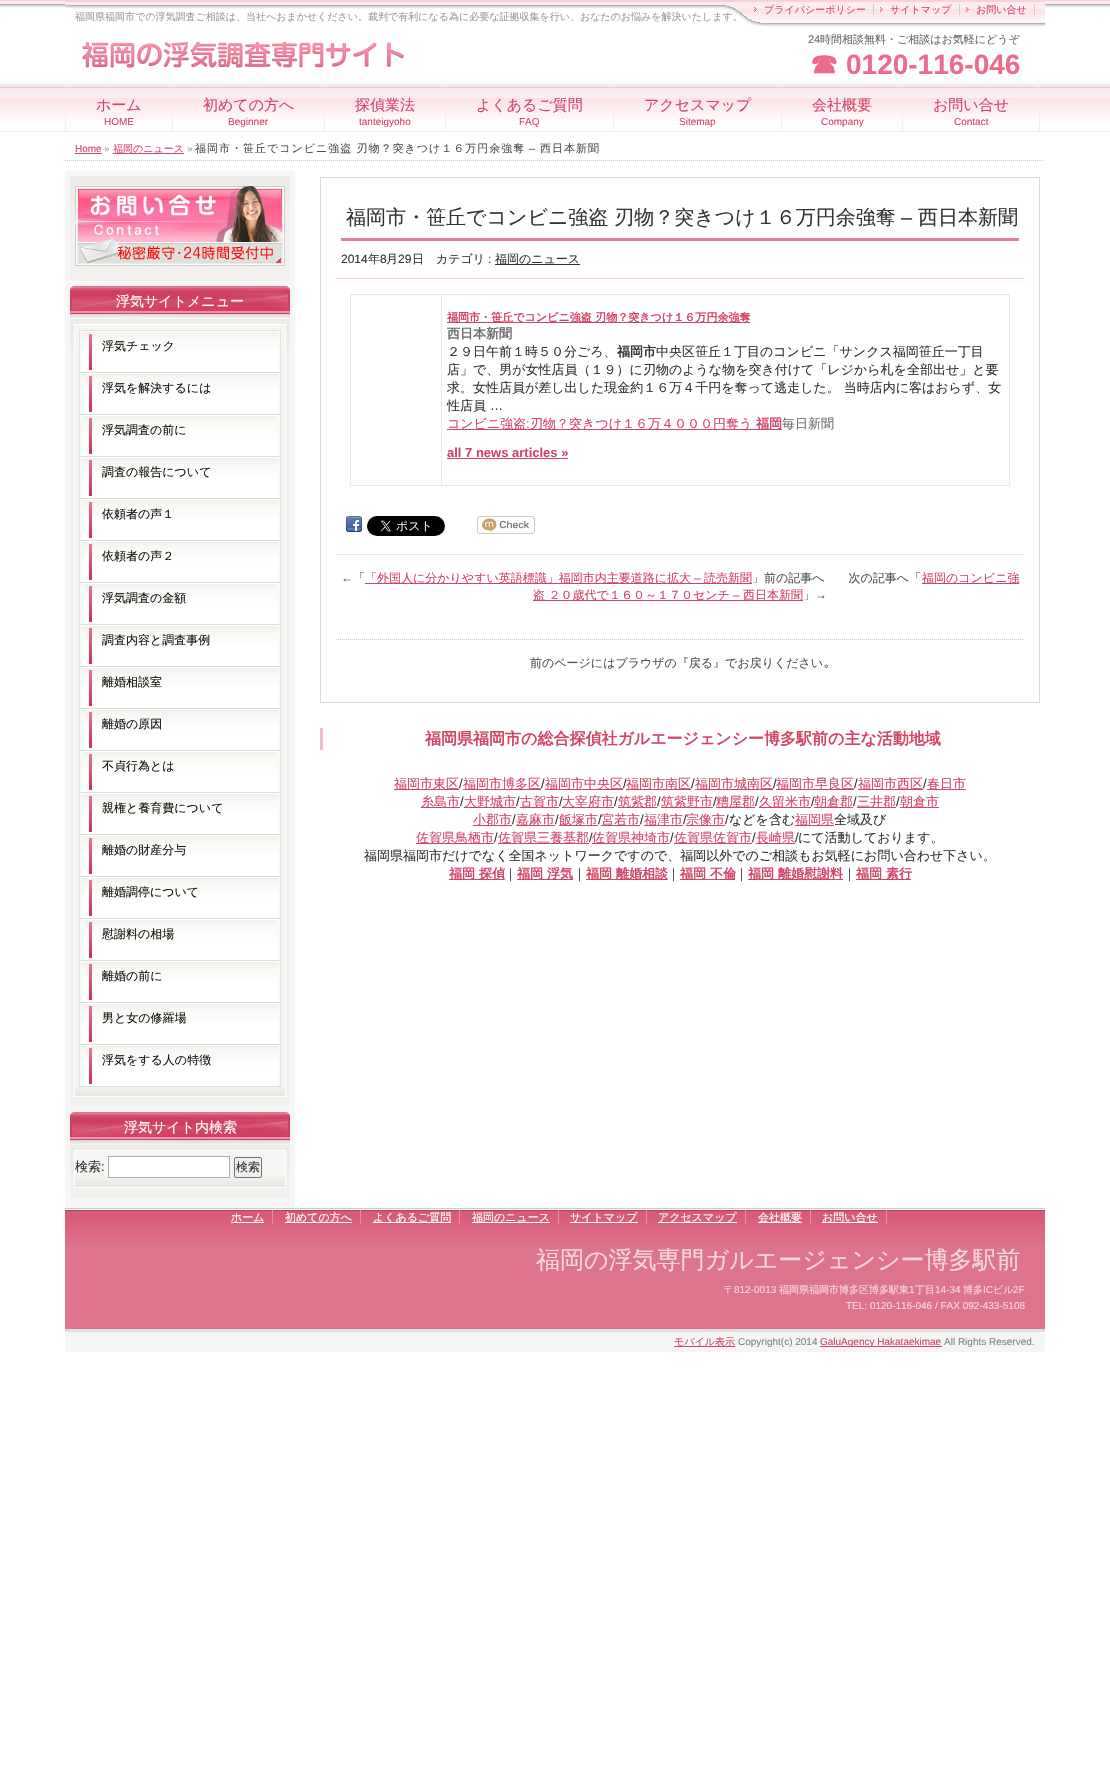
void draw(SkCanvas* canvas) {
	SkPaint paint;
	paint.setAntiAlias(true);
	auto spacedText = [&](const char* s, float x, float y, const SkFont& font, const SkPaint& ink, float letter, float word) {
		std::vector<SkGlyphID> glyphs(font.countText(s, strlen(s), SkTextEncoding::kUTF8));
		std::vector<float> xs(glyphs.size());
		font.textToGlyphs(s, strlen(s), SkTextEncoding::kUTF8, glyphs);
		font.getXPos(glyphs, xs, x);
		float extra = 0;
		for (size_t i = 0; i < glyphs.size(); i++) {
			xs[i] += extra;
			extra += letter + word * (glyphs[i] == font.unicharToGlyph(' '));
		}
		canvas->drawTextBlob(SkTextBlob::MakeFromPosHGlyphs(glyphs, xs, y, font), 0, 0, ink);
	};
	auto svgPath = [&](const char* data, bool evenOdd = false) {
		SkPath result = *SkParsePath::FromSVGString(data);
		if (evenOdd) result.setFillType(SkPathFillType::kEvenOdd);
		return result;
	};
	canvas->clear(0xffffffff);
	canvas->drawImageRect(SkImages::DeferredFromEncodedData(SkData::MakeFromFileName("img1.png")), SkRect::MakeXYWH(0, 0, 1110, 132), SkSamplingOptions());
	canvas->drawImageRect(SkImages::DeferredFromEncodedData(SkData::MakeFromFileName("img2.png")), SkRect::MakeXYWH(60, 0, 990, 132), SkSamplingOptions());
	paint.setColor(0xffffffff);
	canvas->drawRect(SkRect::MakeXYWH(66, 121, 979, 2), paint);
	canvas->drawImageRect(SkImages::DeferredFromEncodedData(SkData::MakeFromFileName("img3.png")), SkRect::MakeXYWH(65, 1, 980, 86), SkSamplingOptions());
	canvas->drawImageRect(SkImages::DeferredFromEncodedData(SkData::MakeFromFileName("img4.png")), SkRect::MakeXYWH(754, 7, 3, 5), SkSamplingOptions());
	SkFont f1(fontMgr->matchFamilyStyle("WenQuanYi Zen Hei", SkFontStyle(500, SkFontStyle::kNormal_Width, SkFontStyle::kUpright_Slant)), 10);
	f1.setSubpixel(true);
	paint.setColor(0xffd34364);
	canvas->drawString("プライバシーポリシー", 764, 13, f1, paint);
	paint.setColor(0xffcccccc);
	canvas->drawRect(SkRect::MakeXYWH(873, 4, 1, 11), paint);
	canvas->drawImageRect(SkImages::DeferredFromEncodedData(SkData::MakeFromFileName("img4.png")), SkRect::MakeXYWH(880, 7, 3, 5), SkSamplingOptions());
	paint.setColor(0xffd34364);
	canvas->drawString("サイトマップ", 890, 13, f1, paint);
	paint.setColor(0xffcccccc);
	canvas->drawRect(SkRect::MakeXYWH(959, 4, 1, 11), paint);
	canvas->drawImageRect(SkImages::DeferredFromEncodedData(SkData::MakeFromFileName("img4.png")), SkRect::MakeXYWH(966, 7, 3, 5), SkSamplingOptions());
	paint.setColor(0xffd34364);
	canvas->drawString("お問い合せ", 976, 13, f1, paint);
	paint.setColor(0xffcccccc);
	canvas->drawRect(SkRect::MakeXYWH(1034, 4, 1, 11), paint);
	paint.setColor(0xff999999);
	canvas->drawString("福岡県福岡市での浮気調査ご相談は、当社へおまかせください。裁判で有利になる為に必要な証拠収集を行い、おなたのお悩みを解決いたします。", 75, 20, f1, paint);
	canvas->drawImageRect(SkImages::DeferredFromEncodedData(SkData::MakeFromFileName("img5.png")), SkRect::MakeXYWH(82, 41, 322, 27), SkSamplingOptions());
	SkFont f2(fontMgr->matchFamilyStyle("Liberation Sans", SkFontStyle::Normal()), 11);
	f2.setSubpixel(true);
	paint.setColor(0xff666666);
	canvas->drawString("24", 808, 43, f2, paint);
	SkFont f3(fontMgr->matchFamilyStyle("WenQuanYi Zen Hei", SkFontStyle(500, SkFontStyle::kNormal_Width, SkFontStyle::kUpright_Slant)), 11);
	f3.setSubpixel(true);
	canvas->drawString("時間相談無料・ご相談はお気軽にどうぞ", 820, 43, f3, paint);
	SkFont f4(fontMgr->matchFamilyStyle("WenQuanYi Zen Hei", SkFontStyle::Bold()), 28);
	f4.setSubpixel(true);
	paint.setColor(0xffee6a8b);
	canvas->drawString("☎", 810, 74, f4, paint);
	SkFont f5(fontMgr->matchFamilyStyle("Liberation Sans", SkFontStyle::Bold()), 28);
	f5.setSubpixel(true);
	canvas->drawString("0120-116-046", 846, 74, f5, paint);
	canvas->drawImageRect(SkImages::DeferredFromEncodedData(SkData::MakeFromFileName("img6.png")), SkRect::MakeXYWH(66, 87, 979, 34), SkSamplingOptions());
	paint.setColor(0xfff0f0f0);
	canvas->drawRect(SkRect::MakeXYWH(65, 87, 1, 44), paint);
	canvas->drawRect(SkRect::MakeXYWH(172, 87, 1, 44), paint);
	SkFont f6(fontMgr->matchFamilyStyle("WenQuanYi Zen Hei", SkFontStyle(500, SkFontStyle::kNormal_Width, SkFontStyle::kUpright_Slant)), 15);
	f6.setSubpixel(true);
	paint.setColor(0xffd34364);
	canvas->drawString("ホーム", 96, 110, f6, paint);
	SkFont f7(fontMgr->matchFamilyStyle("Liberation Sans", SkFontStyle::Normal()), 10);
	f7.setSubpixel(true);
	canvas->drawString("HOME", 104, 125, f7, paint);
	paint.setColor(0xfff0f0f0);
	canvas->drawRect(SkRect::MakeXYWH(324, 87, 1, 44), paint);
	paint.setColor(0xffd34364);
	canvas->drawString("初めての方へ", 203, 110, f6, paint);
	canvas->drawString("Beginner", 228, 125, f7, paint);
	paint.setColor(0xfff0f0f0);
	canvas->drawRect(SkRect::MakeXYWH(445, 87, 1, 44), paint);
	paint.setColor(0xffd34364);
	canvas->drawString("探偵業法", 355, 110, f6, paint);
	canvas->drawString("tanteigyoho", 359, 125, f7, paint);
	paint.setColor(0xfff0f0f0);
	canvas->drawRect(SkRect::MakeXYWH(613, 87, 1, 44), paint);
	paint.setColor(0xffd34364);
	canvas->drawString("よくあるご質問", 476, 110, f6, paint);
	canvas->drawString("FAQ", 519, 125, f7, paint);
	paint.setColor(0xfff0f0f0);
	canvas->drawRect(SkRect::MakeXYWH(781, 87, 1, 44), paint);
	paint.setColor(0xffd34364);
	canvas->drawString("アクセスマップ", 644, 110, f6, paint);
	canvas->drawString("Sitemap", 679, 125, f7, paint);
	paint.setColor(0xfff0f0f0);
	canvas->drawRect(SkRect::MakeXYWH(902, 87, 1, 44), paint);
	paint.setColor(0xffd34364);
	canvas->drawString("会社概要", 812, 110, f6, paint);
	canvas->drawString("Company", 821, 125, f7, paint);
	paint.setColor(0xfff0f0f0);
	canvas->drawRect(SkRect::MakeXYWH(1039, 87, 1, 44), paint);
	paint.setColor(0xffd34364);
	canvas->drawString("お問い合せ", 933, 110, f6, paint);
	canvas->drawString("Contact", 954, 125, f7, paint);
	paint.setStroke(true);
	paint.setStrokeWidth(1);
	paint.setColor(0xffcccccc);
	paint.setPathEffect(SkDashPathEffect::Make({{1, 1}}, 0));
	canvas->drawPath(svgPath("M65 160.5H1045"), paint);
	paint.setPathEffect(nullptr);
	paint.setStroke(false);
	paint.setColor(0xffd34364);
	canvas->drawString("Home", 75, 152, f7, paint);
	canvas->drawRect(SkRect::MakeXYWH(75, 153, 27, 1), paint);
	paint.setColor(0xff999999);
	canvas->drawString("»", 104, 152, f7, paint);
	paint.setColor(0xffd34364);
	canvas->drawRect(SkRect::MakeXYWH(113, 153, 71, 1), paint);
	canvas->drawString("福岡のニュース", 113, 152, f1, paint);
	paint.setColor(0xff999999);
	canvas->drawString("»", 187, 152, f7, paint);
	paint.setColor(0xff505050);
	spacedText("福岡市・笹丘でコンビニ強盗 刃物？突きつけ１６万円余強奪", 195, 152, f3, paint, 1, 0);
	spacedText("–", 529, 152, f2, paint, 1, 0);
	spacedText("西日本新聞", 540, 152, f3, paint, 1, 0);
	paint.setColor(0xfff6f6f6);
	canvas->drawRect(SkRect::MakeXYWH(65, 171, 230, 1037), paint);
	paint.setColor(0xfff2f1ef);
	canvas->drawRect(SkRect::MakeXYWH(70, 205, 220, 76), paint);
	paint.setColor(0xffedece9);
	canvas->drawRect(SkRect::MakeXYWH(70, 176, 220, 29), paint);
	canvas->drawImageRect(SkImages::DeferredFromEncodedData(SkData::MakeFromFileName("img7.png")), SkRect::MakeXYWH(75, 186, 210, 80), SkSamplingOptions());
	canvas->drawImageRect(SkImages::DeferredFromEncodedData(SkData::MakeFromFileName("img8.png")), SkRect::MakeXYWH(70, 286, 220, 32), SkSamplingOptions());
	SkFont f8(fontMgr->matchFamilyStyle("WenQuanYi Zen Hei", SkFontStyle(500, SkFontStyle::kNormal_Width, SkFontStyle::kUpright_Slant)), 14);
	f8.setSubpixel(true);
	paint.setColor(0xffffffff);
	canvas->drawString("浮気サイトメニュー", 116, 306, f8, paint);
	paint.setColor(0xfff2f1ef);
	canvas->drawRect(SkRect::MakeXYWH(70, 348, 220, 759), paint);
	paint.setColor(0xffedece9);
	canvas->drawRect(SkRect::MakeXYWH(70, 319, 220, 29), paint);
	paint.setColor(0xfff5f5f4);
	canvas->drawRect(SkRect::MakeXYWH(75, 325, 210, 760), paint);
	canvas->drawImageRect(SkImages::DeferredFromEncodedData(SkData::MakeFromFileName("img9.png")), SkRect::MakeXYWH(75, 1085, 210, 12), SkSamplingOptions());
	paint.setColor(0xffffffff);
	canvas->drawRect(SkRect::MakeXYWH(74, 324, 212, 1), paint);
	canvas->drawRect(SkRect::MakeXYWH(285, 324, 1, 773), paint);
	canvas->drawRect(SkRect::MakeXYWH(74, 324, 1, 773), paint);
	paint.setColor(0xffe3e3e3);
	canvas->drawRect(SkRect::MakeXYWH(79, 330, 202, 1), paint);
	canvas->drawRect(SkRect::MakeXYWH(280, 330, 1, 757), paint);
	canvas->drawRect(SkRect::MakeXYWH(79, 330, 1, 757), paint);
	paint.setColor(0xfff8f8f5);
	canvas->drawRect(SkRect::MakeXYWH(80, 332, 200, 40), paint);
	canvas->drawImageRect(SkImages::DeferredFromEncodedData(SkData::MakeFromFileName("img10.png")), SkRect::MakeXYWH(82, 332, 196, 40), SkSamplingOptions());
	paint.setColor(0xffffffff);
	canvas->drawRect(SkRect::MakeXYWH(80, 331, 200, 1), paint);
	paint.setColor(0xffe0e0d8);
	canvas->drawRect(SkRect::MakeXYWH(80, 372, 200, 1), paint);
	SkFont f9(fontMgr->matchFamilyStyle("WenQuanYi Zen Hei", SkFontStyle(500, SkFontStyle::kNormal_Width, SkFontStyle::kUpright_Slant)), 12);
	f9.setSubpixel(true);
	paint.setColor(0xff14130c);
	canvas->drawString("浮気チェック", 102, 350, f9, paint);
	paint.setColor(0xfff8f8f5);
	canvas->drawRect(SkRect::MakeXYWH(80, 374, 200, 40), paint);
	canvas->drawImageRect(SkImages::DeferredFromEncodedData(SkData::MakeFromFileName("img10.png")), SkRect::MakeXYWH(82, 374, 196, 40), SkSamplingOptions());
	paint.setColor(0xffffffff);
	canvas->drawRect(SkRect::MakeXYWH(80, 373, 200, 1), paint);
	paint.setColor(0xffe0e0d8);
	canvas->drawRect(SkRect::MakeXYWH(80, 414, 200, 1), paint);
	paint.setColor(0xff14130c);
	canvas->drawString("浮気を解決するには", 102, 392, f9, paint);
	paint.setColor(0xfff8f8f5);
	canvas->drawRect(SkRect::MakeXYWH(80, 416, 200, 40), paint);
	canvas->drawImageRect(SkImages::DeferredFromEncodedData(SkData::MakeFromFileName("img10.png")), SkRect::MakeXYWH(82, 416, 196, 40), SkSamplingOptions());
	paint.setColor(0xffffffff);
	canvas->drawRect(SkRect::MakeXYWH(80, 415, 200, 1), paint);
	paint.setColor(0xffe0e0d8);
	canvas->drawRect(SkRect::MakeXYWH(80, 456, 200, 1), paint);
	paint.setColor(0xff14130c);
	canvas->drawString("浮気調査の前に", 102, 434, f9, paint);
	paint.setColor(0xfff8f8f5);
	canvas->drawRect(SkRect::MakeXYWH(80, 458, 200, 40), paint);
	canvas->drawImageRect(SkImages::DeferredFromEncodedData(SkData::MakeFromFileName("img10.png")), SkRect::MakeXYWH(82, 458, 196, 40), SkSamplingOptions());
	paint.setColor(0xffffffff);
	canvas->drawRect(SkRect::MakeXYWH(80, 457, 200, 1), paint);
	paint.setColor(0xffe0e0d8);
	canvas->drawRect(SkRect::MakeXYWH(80, 498, 200, 1), paint);
	paint.setColor(0xff14130c);
	canvas->drawString("調査の報告について", 102, 476, f9, paint);
	paint.setColor(0xfff8f8f5);
	canvas->drawRect(SkRect::MakeXYWH(80, 500, 200, 40), paint);
	canvas->drawImageRect(SkImages::DeferredFromEncodedData(SkData::MakeFromFileName("img10.png")), SkRect::MakeXYWH(82, 500, 196, 40), SkSamplingOptions());
	paint.setColor(0xffffffff);
	canvas->drawRect(SkRect::MakeXYWH(80, 499, 200, 1), paint);
	paint.setColor(0xffe0e0d8);
	canvas->drawRect(SkRect::MakeXYWH(80, 540, 200, 1), paint);
	paint.setColor(0xff14130c);
	canvas->drawString("依頼者の声１", 102, 518, f9, paint);
	paint.setColor(0xfff8f8f5);
	canvas->drawRect(SkRect::MakeXYWH(80, 542, 200, 40), paint);
	canvas->drawImageRect(SkImages::DeferredFromEncodedData(SkData::MakeFromFileName("img10.png")), SkRect::MakeXYWH(82, 542, 196, 40), SkSamplingOptions());
	paint.setColor(0xffffffff);
	canvas->drawRect(SkRect::MakeXYWH(80, 541, 200, 1), paint);
	paint.setColor(0xffe0e0d8);
	canvas->drawRect(SkRect::MakeXYWH(80, 582, 200, 1), paint);
	paint.setColor(0xff14130c);
	canvas->drawString("依頼者の声２", 102, 560, f9, paint);
	paint.setColor(0xfff8f8f5);
	canvas->drawRect(SkRect::MakeXYWH(80, 584, 200, 40), paint);
	canvas->drawImageRect(SkImages::DeferredFromEncodedData(SkData::MakeFromFileName("img10.png")), SkRect::MakeXYWH(82, 584, 196, 40), SkSamplingOptions());
	paint.setColor(0xffffffff);
	canvas->drawRect(SkRect::MakeXYWH(80, 583, 200, 1), paint);
	paint.setColor(0xffe0e0d8);
	canvas->drawRect(SkRect::MakeXYWH(80, 624, 200, 1), paint);
	paint.setColor(0xff14130c);
	canvas->drawString("浮気調査の金額", 102, 602, f9, paint);
	paint.setColor(0xfff8f8f5);
	canvas->drawRect(SkRect::MakeXYWH(80, 626, 200, 40), paint);
	canvas->drawImageRect(SkImages::DeferredFromEncodedData(SkData::MakeFromFileName("img10.png")), SkRect::MakeXYWH(82, 626, 196, 40), SkSamplingOptions());
	paint.setColor(0xffffffff);
	canvas->drawRect(SkRect::MakeXYWH(80, 625, 200, 1), paint);
	paint.setColor(0xffe0e0d8);
	canvas->drawRect(SkRect::MakeXYWH(80, 666, 200, 1), paint);
	paint.setColor(0xff14130c);
	canvas->drawString("調査内容と調査事例", 102, 644, f9, paint);
	paint.setColor(0xfff8f8f5);
	canvas->drawRect(SkRect::MakeXYWH(80, 668, 200, 40), paint);
	canvas->drawImageRect(SkImages::DeferredFromEncodedData(SkData::MakeFromFileName("img10.png")), SkRect::MakeXYWH(82, 668, 196, 40), SkSamplingOptions());
	paint.setColor(0xffffffff);
	canvas->drawRect(SkRect::MakeXYWH(80, 667, 200, 1), paint);
	paint.setColor(0xffe0e0d8);
	canvas->drawRect(SkRect::MakeXYWH(80, 708, 200, 1), paint);
	paint.setColor(0xff14130c);
	canvas->drawString("離婚相談室", 102, 686, f9, paint);
	paint.setColor(0xfff8f8f5);
	canvas->drawRect(SkRect::MakeXYWH(80, 710, 200, 40), paint);
	canvas->drawImageRect(SkImages::DeferredFromEncodedData(SkData::MakeFromFileName("img10.png")), SkRect::MakeXYWH(82, 710, 196, 40), SkSamplingOptions());
	paint.setColor(0xffffffff);
	canvas->drawRect(SkRect::MakeXYWH(80, 709, 200, 1), paint);
	paint.setColor(0xffe0e0d8);
	canvas->drawRect(SkRect::MakeXYWH(80, 750, 200, 1), paint);
	paint.setColor(0xff14130c);
	canvas->drawString("離婚の原因", 102, 728, f9, paint);
	paint.setColor(0xfff8f8f5);
	canvas->drawRect(SkRect::MakeXYWH(80, 752, 200, 40), paint);
	canvas->drawImageRect(SkImages::DeferredFromEncodedData(SkData::MakeFromFileName("img10.png")), SkRect::MakeXYWH(82, 752, 196, 40), SkSamplingOptions());
	paint.setColor(0xffffffff);
	canvas->drawRect(SkRect::MakeXYWH(80, 751, 200, 1), paint);
	paint.setColor(0xffe0e0d8);
	canvas->drawRect(SkRect::MakeXYWH(80, 792, 200, 1), paint);
	paint.setColor(0xff14130c);
	canvas->drawString("不貞行為とは", 102, 770, f9, paint);
	paint.setColor(0xfff8f8f5);
	canvas->drawRect(SkRect::MakeXYWH(80, 794, 200, 40), paint);
	canvas->drawImageRect(SkImages::DeferredFromEncodedData(SkData::MakeFromFileName("img10.png")), SkRect::MakeXYWH(82, 794, 196, 40), SkSamplingOptions());
	paint.setColor(0xffffffff);
	canvas->drawRect(SkRect::MakeXYWH(80, 793, 200, 1), paint);
	paint.setColor(0xffe0e0d8);
	canvas->drawRect(SkRect::MakeXYWH(80, 834, 200, 1), paint);
	paint.setColor(0xff14130c);
	canvas->drawString("親権と養育費について", 102, 812, f9, paint);
	paint.setColor(0xfff8f8f5);
	canvas->drawRect(SkRect::MakeXYWH(80, 836, 200, 40), paint);
	canvas->drawImageRect(SkImages::DeferredFromEncodedData(SkData::MakeFromFileName("img10.png")), SkRect::MakeXYWH(82, 836, 196, 40), SkSamplingOptions());
	paint.setColor(0xffffffff);
	canvas->drawRect(SkRect::MakeXYWH(80, 835, 200, 1), paint);
	paint.setColor(0xffe0e0d8);
	canvas->drawRect(SkRect::MakeXYWH(80, 876, 200, 1), paint);
	paint.setColor(0xff14130c);
	canvas->drawString("離婚の財産分与", 102, 854, f9, paint);
	paint.setColor(0xfff8f8f5);
	canvas->drawRect(SkRect::MakeXYWH(80, 878, 200, 40), paint);
	canvas->drawImageRect(SkImages::DeferredFromEncodedData(SkData::MakeFromFileName("img10.png")), SkRect::MakeXYWH(82, 878, 196, 40), SkSamplingOptions());
	paint.setColor(0xffffffff);
	canvas->drawRect(SkRect::MakeXYWH(80, 877, 200, 1), paint);
	paint.setColor(0xffe0e0d8);
	canvas->drawRect(SkRect::MakeXYWH(80, 918, 200, 1), paint);
	paint.setColor(0xff14130c);
	canvas->drawString("離婚調停について", 102, 896, f9, paint);
	paint.setColor(0xfff8f8f5);
	canvas->drawRect(SkRect::MakeXYWH(80, 920, 200, 40), paint);
	canvas->drawImageRect(SkImages::DeferredFromEncodedData(SkData::MakeFromFileName("img10.png")), SkRect::MakeXYWH(82, 920, 196, 40), SkSamplingOptions());
	paint.setColor(0xffffffff);
	canvas->drawRect(SkRect::MakeXYWH(80, 919, 200, 1), paint);
	paint.setColor(0xffe0e0d8);
	canvas->drawRect(SkRect::MakeXYWH(80, 960, 200, 1), paint);
	paint.setColor(0xff14130c);
	canvas->drawString("慰謝料の相場", 102, 938, f9, paint);
	paint.setColor(0xfff8f8f5);
	canvas->drawRect(SkRect::MakeXYWH(80, 962, 200, 40), paint);
	canvas->drawImageRect(SkImages::DeferredFromEncodedData(SkData::MakeFromFileName("img10.png")), SkRect::MakeXYWH(82, 962, 196, 40), SkSamplingOptions());
	paint.setColor(0xffffffff);
	canvas->drawRect(SkRect::MakeXYWH(80, 961, 200, 1), paint);
	paint.setColor(0xffe0e0d8);
	canvas->drawRect(SkRect::MakeXYWH(80, 1002, 200, 1), paint);
	paint.setColor(0xff14130c);
	canvas->drawString("離婚の前に", 102, 980, f9, paint);
	paint.setColor(0xfff8f8f5);
	canvas->drawRect(SkRect::MakeXYWH(80, 1004, 200, 40), paint);
	canvas->drawImageRect(SkImages::DeferredFromEncodedData(SkData::MakeFromFileName("img10.png")), SkRect::MakeXYWH(82, 1004, 196, 40), SkSamplingOptions());
	paint.setColor(0xffffffff);
	canvas->drawRect(SkRect::MakeXYWH(80, 1003, 200, 1), paint);
	paint.setColor(0xffe0e0d8);
	canvas->drawRect(SkRect::MakeXYWH(80, 1044, 200, 1), paint);
	paint.setColor(0xff14130c);
	canvas->drawString("男と女の修羅場", 102, 1022, f9, paint);
	paint.setColor(0xfff8f8f5);
	canvas->drawRect(SkRect::MakeXYWH(80, 1046, 200, 40), paint);
	canvas->drawImageRect(SkImages::DeferredFromEncodedData(SkData::MakeFromFileName("img10.png")), SkRect::MakeXYWH(82, 1046, 196, 40), SkSamplingOptions());
	paint.setColor(0xffffffff);
	canvas->drawRect(SkRect::MakeXYWH(80, 1045, 200, 1), paint);
	paint.setColor(0xffe0e0d8);
	canvas->drawRect(SkRect::MakeXYWH(80, 1086, 200, 1), paint);
	paint.setColor(0xff14130c);
	canvas->drawString("浮気をする人の特徴", 102, 1064, f9, paint);
	canvas->drawImageRect(SkImages::DeferredFromEncodedData(SkData::MakeFromFileName("img8.png")), SkRect::MakeXYWH(70, 1112, 220, 32), SkSamplingOptions());
	paint.setColor(0xffffffff);
	canvas->drawString("浮気サイト内検索", 124, 1132, f8, paint);
	paint.setColor(0xfff2f1ef);
	canvas->drawRect(SkRect::MakeXYWH(70, 1174, 220, 24), paint);
	paint.setColor(0xffedece9);
	canvas->drawRect(SkRect::MakeXYWH(70, 1145, 220, 29), paint);
	paint.setColor(0xfff5f5f4);
	canvas->drawRect(SkRect::MakeXYWH(75, 1151, 210, 25), paint);
	canvas->drawImageRect(SkImages::DeferredFromEncodedData(SkData::MakeFromFileName("img9.png")), SkRect::MakeXYWH(75, 1176, 210, 12), SkSamplingOptions());
	paint.setColor(0xffffffff);
	canvas->drawRect(SkRect::MakeXYWH(74, 1150, 212, 1), paint);
	canvas->drawRect(SkRect::MakeXYWH(285, 1150, 1, 38), paint);
	canvas->drawRect(SkRect::MakeXYWH(74, 1150, 1, 38), paint);
	SkFont f10(fontMgr->matchFamilyStyle("WenQuanYi Zen Hei", SkFontStyle(500, SkFontStyle::kNormal_Width, SkFontStyle::kUpright_Slant)), 13);
	f10.setSubpixel(true);
	paint.setColor(0xff333333);
	canvas->drawString("検索", 75, 1171, f10, paint);
	SkFont f11(fontMgr->matchFamilyStyle("Liberation Sans", SkFontStyle::Normal()), 13);
	f11.setSubpixel(true);
	canvas->drawString(":", 101, 1171, f11, paint);
	paint.setColor(0xffffffff);
	canvas->drawRect(SkRect::MakeXYWH(108.5, 1156.5, 121, 21), paint);
	paint.setStroke(true);
	paint.setColor(0xffaaaaaa);
	canvas->drawRect(SkRect::MakeXYWH(108.5, 1156.5, 121, 21), paint);
	paint.setStroke(false);
	paint.setColor(0xffefefef);
	canvas->drawRoundRect(SkRect::MakeXYWH(234.5, 1157.5, 27, 20), 1.5, 1.5, paint);
	paint.setStroke(true);
	paint.setColor(0xff767676);
	canvas->drawRoundRect(SkRect::MakeXYWH(234.5, 1157.5, 27, 20), 1.5, 1.5, paint);
	paint.setStroke(false);
	paint.setColor(0xff333333);
	canvas->drawString("検索", 236, 1171, f9, paint);
	paint.setStroke(true);
	paint.setColor(0xffd9d9d9);
	canvas->drawRect(SkRect::MakeXYWH(320.5, 177.5, 719, 525), paint);
	paint.setStroke(false);
	paint.setColor(0xfff9ced8);
	canvas->drawRect(SkRect::MakeXYWH(336, 278, 688, 1), paint);
	paint.setColor(0xffe18398);
	canvas->drawRect(SkRect::MakeXYWH(341, 238, 678, 3), paint);
	SkFont f12(fontMgr->matchFamilyStyle("WenQuanYi Zen Hei", SkFontStyle(500, SkFontStyle::kNormal_Width, SkFontStyle::kUpright_Slant)), 20);
	f12.setSubpixel(true);
	paint.setColor(0xff333333);
	canvas->drawString("福岡市・笹丘でコンビニ強盗 刃物？突きつけ１６万円余強奪", 346, 224, f12, paint);
	SkFont f13(fontMgr->matchFamilyStyle("Liberation Sans", SkFontStyle::Normal()), 20);
	f13.setSubpixel(true);
	canvas->drawString("–", 901, 224, f13, paint);
	canvas->drawString("西日本新聞", 918, 224, f12, paint);
	SkFont f14(fontMgr->matchFamilyStyle("Liberation Sans", SkFontStyle::Normal()), 12);
	f14.setSubpixel(true);
	canvas->drawString("2014", 341, 263, f14, paint);
	canvas->drawString("年", 368, 263, f9, paint);
	canvas->drawString("8", 380, 263, f14, paint);
	canvas->drawString("月", 386, 263, f9, paint);
	canvas->drawString("29", 398, 263, f14, paint);
	canvas->drawString("日　カテゴリ", 412, 263, f9, paint);
	canvas->drawString(":", 488, 263, f14, paint);
	canvas->drawRect(SkRect::MakeXYWH(495, 264, 85, 1), paint);
	canvas->drawString("福岡のニュース", 495, 263, f9, paint);
	paint.setColor(0xffeae8df);
	canvas->drawRect(SkRect::MakeXYWH(441, 294, 569, 1), paint);
	canvas->drawRect(SkRect::MakeXYWH(1009, 294, 1, 192), paint);
	canvas->drawRect(SkRect::MakeXYWH(441, 485, 569, 1), paint);
	canvas->drawRect(SkRect::MakeXYWH(441, 294, 1, 192), paint);
	canvas->drawRect(SkRect::MakeXYWH(350, 294, 92, 1), paint);
	canvas->drawRect(SkRect::MakeXYWH(350, 485, 92, 1), paint);
	canvas->drawRect(SkRect::MakeXYWH(350, 294, 1, 192), paint);
	paint.setColor(0xffd34364);
	canvas->drawRect(SkRect::MakeXYWH(447, 322, 303, 1), paint);
	SkFont f15(fontMgr->matchFamilyStyle("WenQuanYi Zen Hei", SkFontStyle::Bold()), 11.05);
	f15.setSubpixel(true);
	canvas->drawString("福岡市", 447, 321, f15, paint);
	canvas->drawString("・笹丘でコンビニ強盗 刃物？突きつけ１６万円余強奪", 480, 321, f15, paint);
	SkFont f16(fontMgr->matchFamilyStyle("WenQuanYi Zen Hei", SkFontStyle::Bold()), 13);
	f16.setSubpixel(true);
	paint.setColor(0xff6f6f6f);
	canvas->drawString("西日本新聞", 447, 338, f16, paint);
	paint.setColor(0xff333333);
	canvas->drawString("２９日午前１時５０分ごろ、", 447, 356, f10, paint);
	canvas->drawString("福岡市", 617, 356, f16, paint);
	canvas->drawString("中央区笹丘１丁目のコンビニ「サンクス福岡笹丘一丁目", 656, 356, f10, paint);
	canvas->drawString("店」で、男が女性店員（１９）に刃物のような物を突き付けて「レジから札を全部出せ」と要", 447, 374, f10, paint);
	canvas->drawString("求。女性店員が差し出した現金約１６万４千円を奪って逃走した。 当時店内に客はおらず、女", 447, 392, f10, paint);
	canvas->drawString("性店員", 447, 410, f10, paint);
	canvas->drawString("…", 490, 410, f11, paint);
	paint.setColor(0xffd34364);
	canvas->drawRect(SkRect::MakeXYWH(447, 429, 335, 1), paint);
	canvas->drawString("コンビニ強盗 刃物？突きつけ１６万４０００円奪う", 447, 428, f10, paint);
	canvas->drawString("福岡", 756, 428, f16, paint);
	paint.setColor(0xff6f6f6f);
	canvas->drawString("毎日新聞", 782, 428, f10, paint);
	paint.setColor(0xffd34364);
	canvas->drawString(":", 526, 428, f11, paint);
	SkFont f17(fontMgr->matchFamilyStyle("Liberation Sans", SkFontStyle::Bold()), 13);
	f17.setSubpixel(true);
	canvas->drawString("all 7 news articles »", 447, 457, f17, paint);
	canvas->drawRect(SkRect::MakeXYWH(447, 458, 121, 1), paint);
	canvas->drawImageRect(SkImages::DeferredFromEncodedData(SkData::MakeFromFileName("img11.png")), SkRect::MakeXYWH(346, 516, 16, 16), SkSamplingOptions());
	canvas->drawImageRect(SkImages::DeferredFromEncodedData(SkData::MakeFromFileName("img12.png")), SkRect::MakeXYWH(367, 516, 78, 20), SkSamplingOptions());
	canvas->drawImageRect(SkImages::DeferredFromEncodedData(SkData::MakeFromFileName("img13.png")), SkRect::MakeXYWH(477, 516, 58, 18), SkSamplingOptions());
	paint.setStroke(true);
	paint.setColor(0xffcccccc);
	paint.setPathEffect(SkDashPathEffect::Make({{1, 1}}, 0));
	canvas->drawPath(svgPath("M336 554.5H1024"), paint);
	paint.setPathEffect(nullptr);
	paint.setStroke(false);
	paint.setColor(0xff505050);
	canvas->drawString("←", 341, 582, f14, paint);
	canvas->drawString("「", 353, 582, f9, paint);
	paint.setColor(0xffd34364);
	canvas->drawRect(SkRect::MakeXYWH(365, 583, 387, 1), paint);
	canvas->drawString("「外国人に分かりやすい英語標識」福岡市内主要道路に拡大", 365, 582, f9, paint);
	canvas->drawString("–", 694, 582, f14, paint);
	canvas->drawString("読売新聞", 704, 582, f9, paint);
	paint.setColor(0xff505050);
	canvas->drawString("」前の記事へ　　次の記事へ「", 752, 582, f9, paint);
	paint.setColor(0xffd34364);
	canvas->drawRect(SkRect::MakeXYWH(922, 583, 97, 1), paint);
	canvas->drawString("福岡のコンビニ強", 922, 582, f9, paint);
	canvas->drawRect(SkRect::MakeXYWH(533, 600, 270, 1), paint);
	canvas->drawString("盗 ２０歳代で１６０～１７０センチ", 533, 599, f9, paint);
	canvas->drawString("–", 733, 599, f14, paint);
	canvas->drawString("西日本新聞", 743, 599, f9, paint);
	paint.setColor(0xff505050);
	canvas->drawString("」", 803, 599, f9, paint);
	canvas->drawString("→", 815, 599, f14, paint);
	paint.setStroke(true);
	paint.setColor(0xffcccccc);
	paint.setPathEffect(SkDashPathEffect::Make({{1, 1}}, 0));
	canvas->drawPath(svgPath("M336 639.5H1024"), paint);
	paint.setPathEffect(nullptr);
	paint.setStroke(false);
	paint.setColor(0xff505050);
	canvas->drawString("前のページにはブラウザの『戻る』でお戻りください", 530, 667, f9, paint);
	SkFont f18(fontMgr->matchFamilyStyle("IPAPGothic", SkFontStyle::Normal()), 12);
	f18.setSubpixel(true);
	canvas->drawString("｡", 824, 667, f18, paint);
	paint.setColor(0xffeebbc7);
	canvas->drawRect(SkRect::MakeXYWH(320, 728, 3, 22), paint);
	SkFont f19(fontMgr->matchFamilyStyle("WenQuanYi Zen Hei", SkFontStyle::Bold()), 16);
	f19.setSubpixel(true);
	paint.setColor(0xffd34364);
	canvas->drawString("福岡県福岡市の総合探偵社ガルエージェンシー博多駅前の主な活動地域", 425, 744, f19, paint);
	canvas->drawRect(SkRect::MakeXYWH(394, 789, 65, 1), paint);
	canvas->drawString("福岡市東区", 394, 788, f10, paint);
	paint.setColor(0xff333333);
	canvas->drawString("/", 459, 788, f11, paint);
	paint.setColor(0xffd34364);
	canvas->drawRect(SkRect::MakeXYWH(463, 789, 78, 1), paint);
	canvas->drawString("福岡市博多区", 463, 788, f10, paint);
	paint.setColor(0xff333333);
	canvas->drawString("/", 541, 788, f11, paint);
	paint.setColor(0xffd34364);
	canvas->drawRect(SkRect::MakeXYWH(545, 789, 78, 1), paint);
	canvas->drawString("福岡市中央区", 545, 788, f10, paint);
	paint.setColor(0xff333333);
	canvas->drawString("/", 623, 788, f11, paint);
	paint.setColor(0xffd34364);
	canvas->drawRect(SkRect::MakeXYWH(626, 789, 65, 1), paint);
	canvas->drawString("福岡市南区", 626, 788, f10, paint);
	paint.setColor(0xff333333);
	canvas->drawString("/", 691, 788, f11, paint);
	paint.setColor(0xffd34364);
	canvas->drawRect(SkRect::MakeXYWH(695, 789, 78, 1), paint);
	canvas->drawString("福岡市城南区", 695, 788, f10, paint);
	paint.setColor(0xff333333);
	canvas->drawString("/", 773, 788, f11, paint);
	paint.setColor(0xffd34364);
	canvas->drawRect(SkRect::MakeXYWH(776, 789, 78, 1), paint);
	canvas->drawString("福岡市早良区", 776, 788, f10, paint);
	paint.setColor(0xff333333);
	canvas->drawString("/", 854, 788, f11, paint);
	paint.setColor(0xffd34364);
	canvas->drawRect(SkRect::MakeXYWH(858, 789, 65, 1), paint);
	canvas->drawString("福岡市西区", 858, 788, f10, paint);
	paint.setColor(0xff333333);
	canvas->drawString("/", 923, 788, f11, paint);
	paint.setColor(0xffd34364);
	canvas->drawRect(SkRect::MakeXYWH(927, 789, 39, 1), paint);
	canvas->drawString("春日市", 927, 788, f10, paint);
	canvas->drawRect(SkRect::MakeXYWH(421, 807, 39, 1), paint);
	canvas->drawString("糸島市", 421, 806, f10, paint);
	paint.setColor(0xff333333);
	canvas->drawString("/", 460, 806, f11, paint);
	paint.setColor(0xffd34364);
	canvas->drawRect(SkRect::MakeXYWH(464, 807, 52, 1), paint);
	canvas->drawString("大野城市", 464, 806, f10, paint);
	paint.setColor(0xff333333);
	canvas->drawString("/", 516, 806, f11, paint);
	paint.setColor(0xffd34364);
	canvas->drawRect(SkRect::MakeXYWH(520, 807, 39, 1), paint);
	canvas->drawString("古賀市", 520, 806, f10, paint);
	paint.setColor(0xff333333);
	canvas->drawString("/", 559, 806, f11, paint);
	paint.setColor(0xffd34364);
	canvas->drawRect(SkRect::MakeXYWH(562, 807, 52, 1), paint);
	canvas->drawString("大宰府市", 562, 806, f10, paint);
	paint.setColor(0xff333333);
	canvas->drawString("/", 614, 806, f11, paint);
	paint.setColor(0xffd34364);
	canvas->drawRect(SkRect::MakeXYWH(618, 807, 39, 1), paint);
	canvas->drawString("筑紫郡", 618, 806, f10, paint);
	paint.setColor(0xff333333);
	canvas->drawString("/", 657, 806, f11, paint);
	paint.setColor(0xffd34364);
	canvas->drawRect(SkRect::MakeXYWH(661, 807, 52, 1), paint);
	canvas->drawString("筑紫野市", 661, 806, f10, paint);
	paint.setColor(0xff333333);
	canvas->drawString("/", 713, 806, f11, paint);
	paint.setColor(0xffd34364);
	canvas->drawRect(SkRect::MakeXYWH(716, 807, 39, 1), paint);
	canvas->drawString("糟屋郡", 716, 806, f10, paint);
	paint.setColor(0xff333333);
	canvas->drawString("/", 755, 806, f11, paint);
	paint.setColor(0xffd34364);
	canvas->drawRect(SkRect::MakeXYWH(759, 807, 52, 1), paint);
	canvas->drawString("久留米市", 759, 806, f10, paint);
	paint.setColor(0xff333333);
	canvas->drawString("/", 811, 806, f11, paint);
	paint.setColor(0xffd34364);
	canvas->drawRect(SkRect::MakeXYWH(814, 807, 39, 1), paint);
	canvas->drawString("朝倉郡", 814, 806, f10, paint);
	paint.setColor(0xff333333);
	canvas->drawString("/", 853, 806, f11, paint);
	paint.setColor(0xffd34364);
	canvas->drawRect(SkRect::MakeXYWH(857, 807, 39, 1), paint);
	canvas->drawString("三井郡", 857, 806, f10, paint);
	paint.setColor(0xff333333);
	canvas->drawString("/", 896, 806, f11, paint);
	paint.setColor(0xffd34364);
	canvas->drawRect(SkRect::MakeXYWH(900, 807, 39, 1), paint);
	canvas->drawString("朝倉市", 900, 806, f10, paint);
	canvas->drawRect(SkRect::MakeXYWH(473, 825, 39, 1), paint);
	canvas->drawString("小郡市", 473, 824, f10, paint);
	paint.setColor(0xff333333);
	canvas->drawString("/", 512, 824, f11, paint);
	paint.setColor(0xffd34364);
	canvas->drawRect(SkRect::MakeXYWH(516, 825, 39, 1), paint);
	canvas->drawString("嘉麻市", 516, 824, f10, paint);
	paint.setColor(0xff333333);
	canvas->drawString("/", 555, 824, f11, paint);
	paint.setColor(0xffd34364);
	canvas->drawRect(SkRect::MakeXYWH(559, 825, 39, 1), paint);
	canvas->drawString("飯塚市", 559, 824, f10, paint);
	paint.setColor(0xff333333);
	canvas->drawString("/", 598, 824, f11, paint);
	paint.setColor(0xffd34364);
	canvas->drawRect(SkRect::MakeXYWH(601, 825, 39, 1), paint);
	canvas->drawString("宮若市", 601, 824, f10, paint);
	paint.setColor(0xff333333);
	canvas->drawString("/", 640, 824, f11, paint);
	paint.setColor(0xffd34364);
	canvas->drawRect(SkRect::MakeXYWH(644, 825, 39, 1), paint);
	canvas->drawString("福津市", 644, 824, f10, paint);
	paint.setColor(0xff333333);
	canvas->drawString("/", 683, 824, f11, paint);
	paint.setColor(0xffd34364);
	canvas->drawRect(SkRect::MakeXYWH(686, 825, 39, 1), paint);
	canvas->drawString("宗像市", 686, 824, f10, paint);
	paint.setColor(0xff333333);
	canvas->drawString("/", 725, 824, f11, paint);
	canvas->drawString("などを含む", 729, 824, f10, paint);
	paint.setColor(0xffd34364);
	canvas->drawRect(SkRect::MakeXYWH(795, 825, 39, 1), paint);
	canvas->drawString("福岡県", 795, 824, f10, paint);
	paint.setColor(0xff333333);
	canvas->drawString("全域及び", 834, 824, f10, paint);
	paint.setColor(0xffd34364);
	canvas->drawRect(SkRect::MakeXYWH(416, 843, 78, 1), paint);
	canvas->drawString("佐賀県鳥栖市", 416, 842, f10, paint);
	paint.setColor(0xff333333);
	canvas->drawString("/", 494, 842, f11, paint);
	paint.setColor(0xffd34364);
	canvas->drawRect(SkRect::MakeXYWH(498, 843, 91, 1), paint);
	canvas->drawString("佐賀県三養基郡", 498, 842, f10, paint);
	paint.setColor(0xff333333);
	canvas->drawString("/", 589, 842, f11, paint);
	paint.setColor(0xffd34364);
	canvas->drawRect(SkRect::MakeXYWH(592, 843, 78, 1), paint);
	canvas->drawString("佐賀県神埼市", 592, 842, f10, paint);
	paint.setColor(0xff333333);
	canvas->drawString("/", 670, 842, f11, paint);
	paint.setColor(0xffd34364);
	canvas->drawRect(SkRect::MakeXYWH(674, 843, 78, 1), paint);
	canvas->drawString("佐賀県佐賀市", 674, 842, f10, paint);
	paint.setColor(0xff333333);
	canvas->drawString("/", 752, 842, f11, paint);
	paint.setColor(0xffd34364);
	canvas->drawRect(SkRect::MakeXYWH(756, 843, 39, 1), paint);
	canvas->drawString("長崎県", 756, 842, f10, paint);
	paint.setColor(0xff333333);
	canvas->drawString("/", 795, 842, f11, paint);
	canvas->drawString("にて活動しております。", 798, 842, f10, paint);
	canvas->drawString("福岡県福岡市だけでなく全国ネットワークですので、福岡以外でのご相談もお気軽にお問い合わせ下さい。", 364, 860, f10, paint);
	paint.setColor(0xffd34364);
	canvas->drawRect(SkRect::MakeXYWH(449, 879, 55, 1), paint);
	canvas->drawString("福岡 探偵", 449, 878, f16, paint);
	paint.setColor(0xff333333);
	canvas->drawString("｜", 504, 878, f10, paint);
	paint.setColor(0xffd34364);
	canvas->drawRect(SkRect::MakeXYWH(517, 879, 56, 1), paint);
	canvas->drawString("福岡 浮気", 517, 878, f16, paint);
	paint.setColor(0xff333333);
	canvas->drawString("｜", 573, 878, f10, paint);
	paint.setColor(0xffd34364);
	canvas->drawRect(SkRect::MakeXYWH(586, 879, 81, 1), paint);
	canvas->drawString("福岡 離婚相談", 586, 878, f16, paint);
	paint.setColor(0xff333333);
	canvas->drawString("｜", 667, 878, f10, paint);
	paint.setColor(0xffd34364);
	canvas->drawRect(SkRect::MakeXYWH(680, 879, 55, 1), paint);
	canvas->drawString("福岡 不倫", 680, 878, f16, paint);
	paint.setColor(0xff333333);
	canvas->drawString("｜", 735, 878, f10, paint);
	paint.setColor(0xffd34364);
	canvas->drawRect(SkRect::MakeXYWH(748, 879, 95, 1), paint);
	canvas->drawString("福岡 離婚慰謝料", 748, 878, f16, paint);
	paint.setColor(0xff333333);
	canvas->drawString("｜", 843, 878, f10, paint);
	paint.setColor(0xffd34364);
	canvas->drawRect(SkRect::MakeXYWH(856, 879, 55, 1), paint);
	canvas->drawString("福岡 素行", 856, 878, f16, paint);
	paint.setColor(0xffde738c);
	canvas->drawRect(SkRect::MakeXYWH(65, 1243, 980, 86), paint);
	canvas->drawImageRect(SkImages::DeferredFromEncodedData(SkData::MakeFromFileName("img14.png")), SkRect::MakeXYWH(65, 1209, 980, 34), SkSamplingOptions());
	paint.setColor(0xffcccccc);
	canvas->drawRect(SkRect::MakeXYWH(65, 1208, 980, 1), paint);
	paint.setColor(0xffffffff);
	canvas->drawRect(SkRect::MakeXYWH(231, 1222, 33, 1), paint);
	canvas->drawString("ホーム", 231, 1221, f3, paint);
	paint.setColor(0xffe48fa3);
	canvas->drawRect(SkRect::MakeXYWH(272, 1210, 1, 14), paint);
	paint.setColor(0xffffffff);
	canvas->drawRect(SkRect::MakeXYWH(285, 1222, 67, 1), paint);
	canvas->drawString("初めての方へ", 285, 1221, f3, paint);
	paint.setColor(0xffe48fa3);
	canvas->drawRect(SkRect::MakeXYWH(360, 1210, 1, 14), paint);
	paint.setColor(0xffffffff);
	canvas->drawRect(SkRect::MakeXYWH(373, 1222, 78, 1), paint);
	canvas->drawString("よくあるご質問", 373, 1221, f3, paint);
	paint.setColor(0xffe48fa3);
	canvas->drawRect(SkRect::MakeXYWH(459, 1210, 1, 14), paint);
	paint.setColor(0xffffffff);
	canvas->drawRect(SkRect::MakeXYWH(472, 1222, 78, 1), paint);
	canvas->drawString("福岡のニュース", 472, 1221, f3, paint);
	paint.setColor(0xffe48fa3);
	canvas->drawRect(SkRect::MakeXYWH(558, 1210, 1, 14), paint);
	paint.setColor(0xffffffff);
	canvas->drawRect(SkRect::MakeXYWH(570, 1222, 68, 1), paint);
	canvas->drawString("サイトマップ", 570, 1221, f3, paint);
	paint.setColor(0xffe48fa3);
	canvas->drawRect(SkRect::MakeXYWH(646, 1210, 1, 14), paint);
	paint.setColor(0xffffffff);
	canvas->drawRect(SkRect::MakeXYWH(658, 1222, 79, 1), paint);
	canvas->drawString("アクセスマップ", 658, 1221, f3, paint);
	paint.setColor(0xffe48fa3);
	canvas->drawRect(SkRect::MakeXYWH(745, 1210, 1, 14), paint);
	paint.setColor(0xffffffff);
	canvas->drawRect(SkRect::MakeXYWH(758, 1222, 44, 1), paint);
	canvas->drawString("会社概要", 758, 1221, f3, paint);
	paint.setColor(0xffe48fa3);
	canvas->drawRect(SkRect::MakeXYWH(810, 1210, 1, 14), paint);
	paint.setColor(0xffffffff);
	canvas->drawRect(SkRect::MakeXYWH(822, 1222, 56, 1), paint);
	canvas->drawString("お問い合せ", 822, 1221, f3, paint);
	paint.setColor(0xffe48fa3);
	canvas->drawRect(SkRect::MakeXYWH(886, 1210, 1, 14), paint);
	SkFont f20(fontMgr->matchFamilyStyle("WenQuanYi Zen Hei", SkFontStyle(500, SkFontStyle::kNormal_Width, SkFontStyle::kUpright_Slant)), 24);
	f20.setSubpixel(true);
	paint.setColor(0xfff5d8de);
	canvas->drawString("福岡の浮気専門ガルエージェンシー博多駅前", 536, 1268, f20, paint);
	canvas->drawString("〒", 724, 1293, f1, paint);
	canvas->drawString("812-0013", 734, 1293, f7, paint);
	canvas->drawString("福岡県福岡市博多区博多駅東", 779, 1293, f1, paint);
	canvas->drawString("1", 909, 1293, f7, paint);
	canvas->drawString("丁目", 915, 1293, f1, paint);
	canvas->drawString("14-34", 935, 1293, f7, paint);
	canvas->drawString("博多", 963, 1293, f1, paint);
	canvas->drawString("IC", 983, 1293, f7, paint);
	canvas->drawString("ビル", 993, 1293, f1, paint);
	canvas->drawString("2F", 1013, 1293, f7, paint);
	canvas->drawString("TEL: 0120-116-046 / FAX 092-433-5108", 846, 1309, f7, paint);
	paint.setColor(0xfff5f5f5);
	canvas->drawRect(SkRect::MakeXYWH(65, 1332, 980, 20), paint);
	paint.setColor(0xffdfdfdf);
	canvas->drawRect(SkRect::MakeXYWH(65, 1329, 980, 3), paint);
	paint.setColor(0xffd34364);
	canvas->drawRect(SkRect::MakeXYWH(674, 1346, 61, 1), paint);
	canvas->drawString("モバイル表示", 674, 1345, f1, paint);
	paint.setColor(0xff838383);
	canvas->drawString("Copyright(c) 2014", 738, 1345, f7, paint);
	paint.setColor(0xffd34364);
	canvas->drawRect(SkRect::MakeXYWH(820, 1346, 122, 1), paint);
	canvas->drawString("GaluAgency Hakataekimae", 820, 1345, f7, paint);
	paint.setColor(0xff838383);
	canvas->drawString("All Rights Reserved.", 944, 1345, f7, paint);
}
